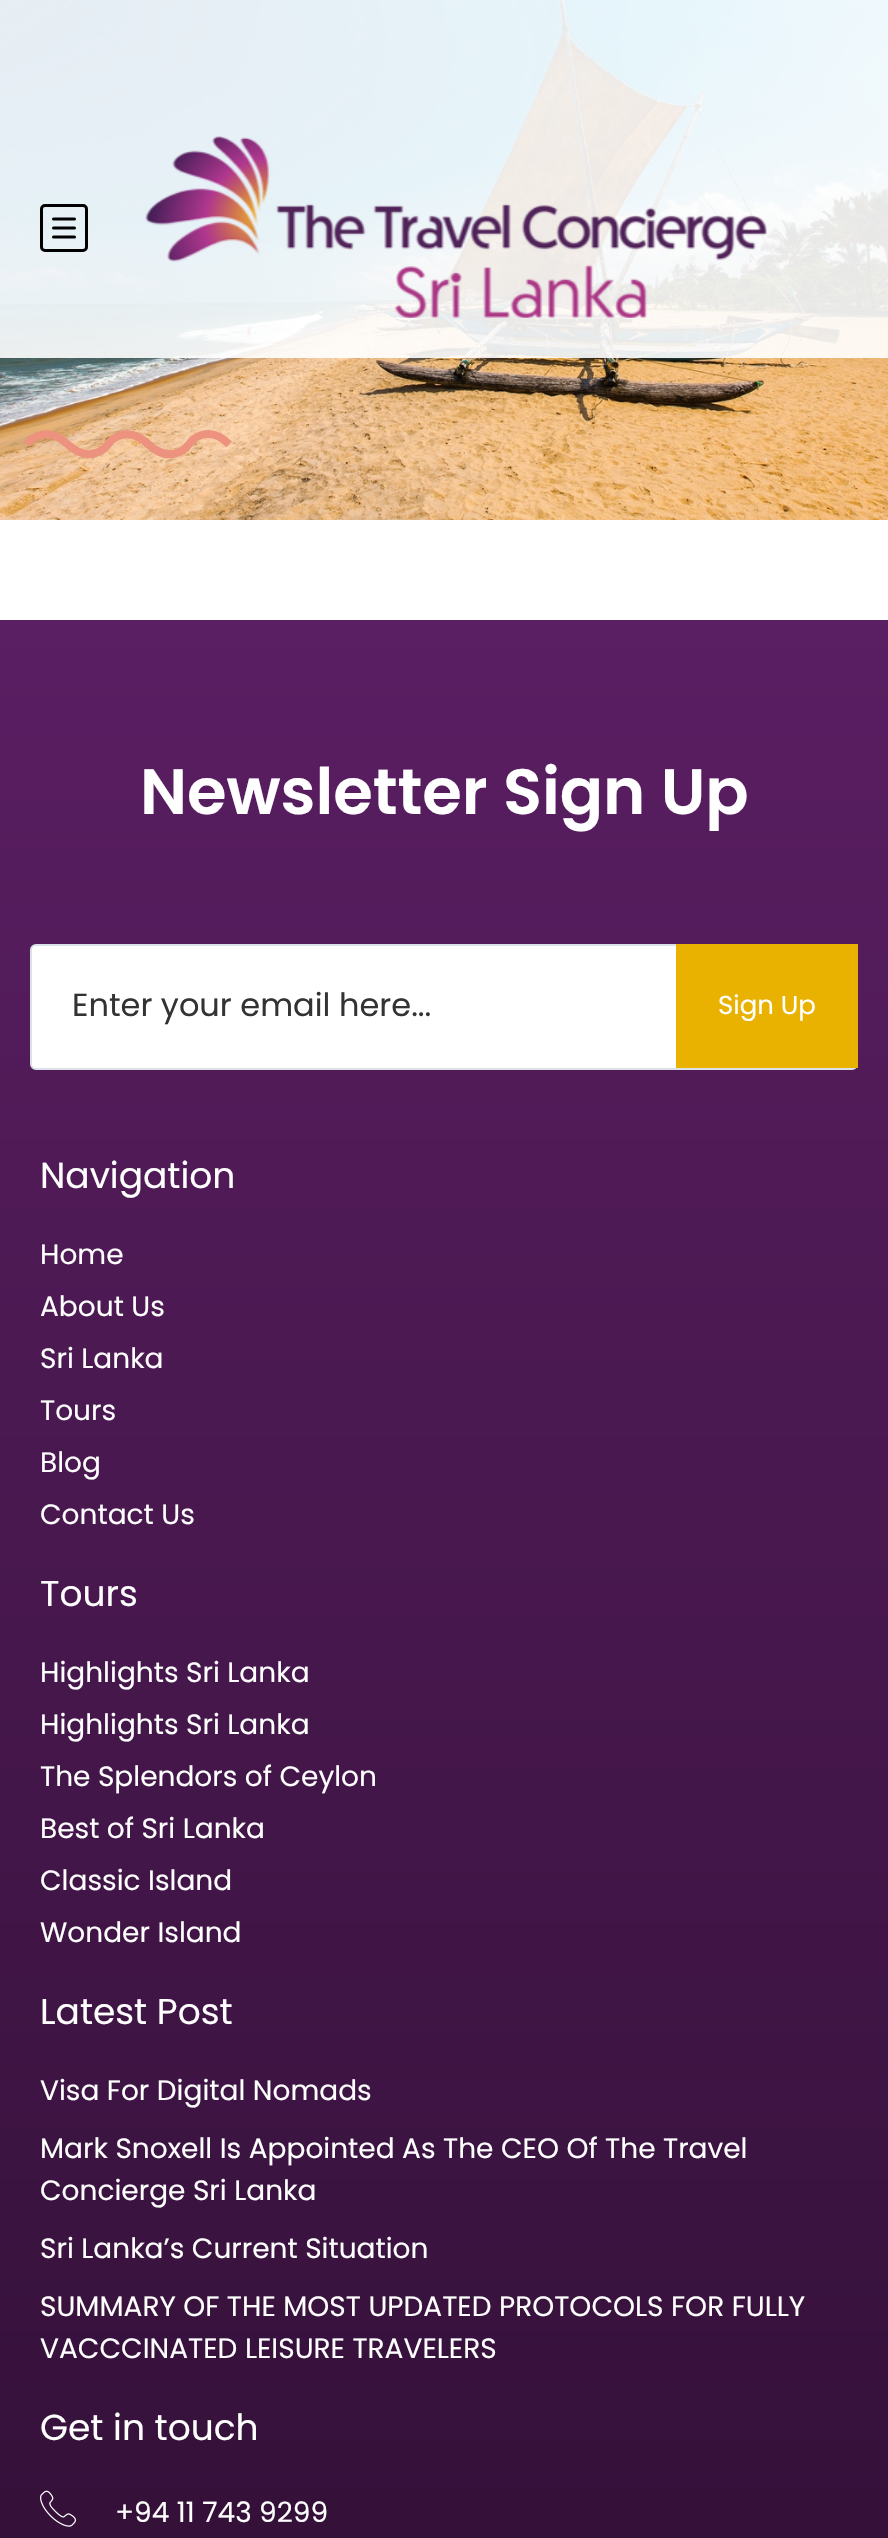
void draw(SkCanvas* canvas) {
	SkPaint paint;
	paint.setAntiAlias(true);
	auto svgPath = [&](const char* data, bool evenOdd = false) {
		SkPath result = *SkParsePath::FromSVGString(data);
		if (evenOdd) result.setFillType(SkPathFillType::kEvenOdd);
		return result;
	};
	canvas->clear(0xffffffff);
	canvas->drawImageRect(SkImages::DeferredFromEncodedData(SkData::MakeFromFileName("img1.png")), SkRect::MakeXYWH(0, 0, 888, 520), SkSamplingOptions());
	canvas->drawImageRect(SkImages::DeferredFromEncodedData(SkData::MakeFromFileName("img2.png")), SkRect::MakeXYWH(24, 430, 208, 29), SkSamplingOptions());
	paint.setColor(0xe6ffffff);
	canvas->drawRect(SkRect::MakeXYWH(0, 0, 888, 358), paint);
	paint.setStroke(true);
	paint.setStrokeWidth(3);
	paint.setColor(0xff000000);
	canvas->drawRoundRect(SkRect::MakeXYWH(41.5, 205.5, 45, 45), 3.5, 3.5, paint);
	paint.setStrokeCap(SkPaint::kRound_Cap);
	paint.setStrokeJoin(SkPaint::kRound_Join);
	canvas->drawPath(svgPath("M53.5 219H74.5M53.5 228H74.5M53.5 237H74.5"), paint);
	canvas->drawImageRect(SkImages::DeferredFromEncodedData(SkData::MakeFromFileName("img3.png")), SkRect::MakeXYWH(145, 136, 622, 182), SkSamplingOptions());
	paint.setStroke(false);
	{
		const SkColor colors[] = {0xff1d0920, 0xff5a1e62};
		const float stops[] = {0, 1};
		const SkPoint ends[] = {{444, 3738}, {444, 620}};
		paint.setShader(SkGradientShader::MakeLinear(ends, colors, stops, 2, SkTileMode::kClamp));
		paint.setAlpha(255);
	}
	canvas->drawRect(SkRect::MakeXYWH(0, 620, 888, 1918), paint);
	SkFont f1(fontMgr->matchFamilyStyle("Poppins", SkFontStyle(600, SkFontStyle::kNormal_Width, SkFontStyle::kUpright_Slant)), 64);
	f1.setSubpixel(true);
	paint.setShader(nullptr);
	paint.setColor(0xffffffff);
	canvas->drawString("Newsletter Sign Up", 140, 814, f1, paint);
	canvas->drawRoundRect(SkRect::MakeXYWH(31, 945, 826, 124), 5, 5, paint);
	paint.setStroke(true);
	paint.setStrokeWidth(2);
	paint.setStrokeCap(SkPaint::kButt_Cap);
	paint.setStrokeJoin(SkPaint::kMiter_Join);
	paint.setColor(0xffdae1e7);
	canvas->drawRoundRect(SkRect::MakeXYWH(31, 945, 826, 124), 5, 5, paint);
	SkFont f2(fontMgr->matchFamilyStyle("Poppins", SkFontStyle::Normal()), 32);
	f2.setSubpixel(true);
	paint.setStroke(false);
	paint.setColor(0xff333333);
	canvas->drawString("Enter your email here...", 72, 1016, f2, paint);
	paint.setColor(0xffe9b200);
	canvas->drawRect(SkRect::MakeXYWH(676, 944, 182, 124), paint);
	SkFont f3(fontMgr->matchFamilyStyle("Poppins", SkFontStyle::Normal()), 26);
	f3.setSubpixel(true);
	paint.setColor(0xffffffff);
	canvas->drawString("Sign Up", 718, 1014, f3, paint);
	SkFont f4(fontMgr->matchFamilyStyle("Poppins", SkFontStyle::Normal()), 36);
	f4.setSubpixel(true);
	canvas->drawString("Navigation", 40, 1188, f4, paint);
	SkFont f5(fontMgr->matchFamilyStyle("Poppins", SkFontStyle::Normal()), 28);
	f5.setSubpixel(true);
	canvas->drawString("Home", 40, 1264, f5, paint);
	canvas->drawString("About Us", 40, 1316, f5, paint);
	canvas->drawString("Sri Lanka", 40, 1368, f5, paint);
	canvas->drawString("Tours", 40, 1420, f5, paint);
	canvas->drawString("Blog", 40, 1472, f5, paint);
	canvas->drawString("Contact Us", 40, 1524, f5, paint);
	canvas->drawString("Tours", 40, 1606, f4, paint);
	canvas->drawString("Highlights Sri Lanka", 40, 1682, f5, paint);
	canvas->drawString("Highlights Sri Lanka", 40, 1734, f5, paint);
	canvas->drawString("The Splendors of Ceylon", 40, 1786, f5, paint);
	canvas->drawString("Best of Sri Lanka", 40, 1838, f5, paint);
	canvas->drawString("Classic Island", 40, 1890, f5, paint);
	canvas->drawString("Wonder Island", 40, 1942, f5, paint);
	canvas->drawString("Latest Post", 40, 2024, f4, paint);
	canvas->drawString("Visa For Digital Nomads", 40, 2100, f5, paint);
	canvas->drawString("Mark Snoxell Is Appointed As The CEO Of The Travel", 40, 2158, f5, paint);
	canvas->drawString("Concierge Sri Lanka", 40, 2200, f5, paint);
	canvas->drawString("Sri Lanka’s Current Situation", 40, 2258, f5, paint);
	canvas->drawString("SUMMARY OF THE MOST UPDATED PROTOCOLS FOR FULLY", 40, 2316, f5, paint);
	canvas->drawString("VACCCINATED LEISURE TRAVELERS", 40, 2358, f5, paint);
	canvas->drawString("Get in touch", 40, 2440, f4, paint);
	canvas->drawImageRect(SkImages::DeferredFromEncodedData(SkData::MakeFromFileName("img4.png")), SkRect::MakeXYWH(40, 2490, 36, 37), SkSamplingOptions());
	canvas->drawString("+94 11 743 9299", 115, 2522, f5, paint);
}
